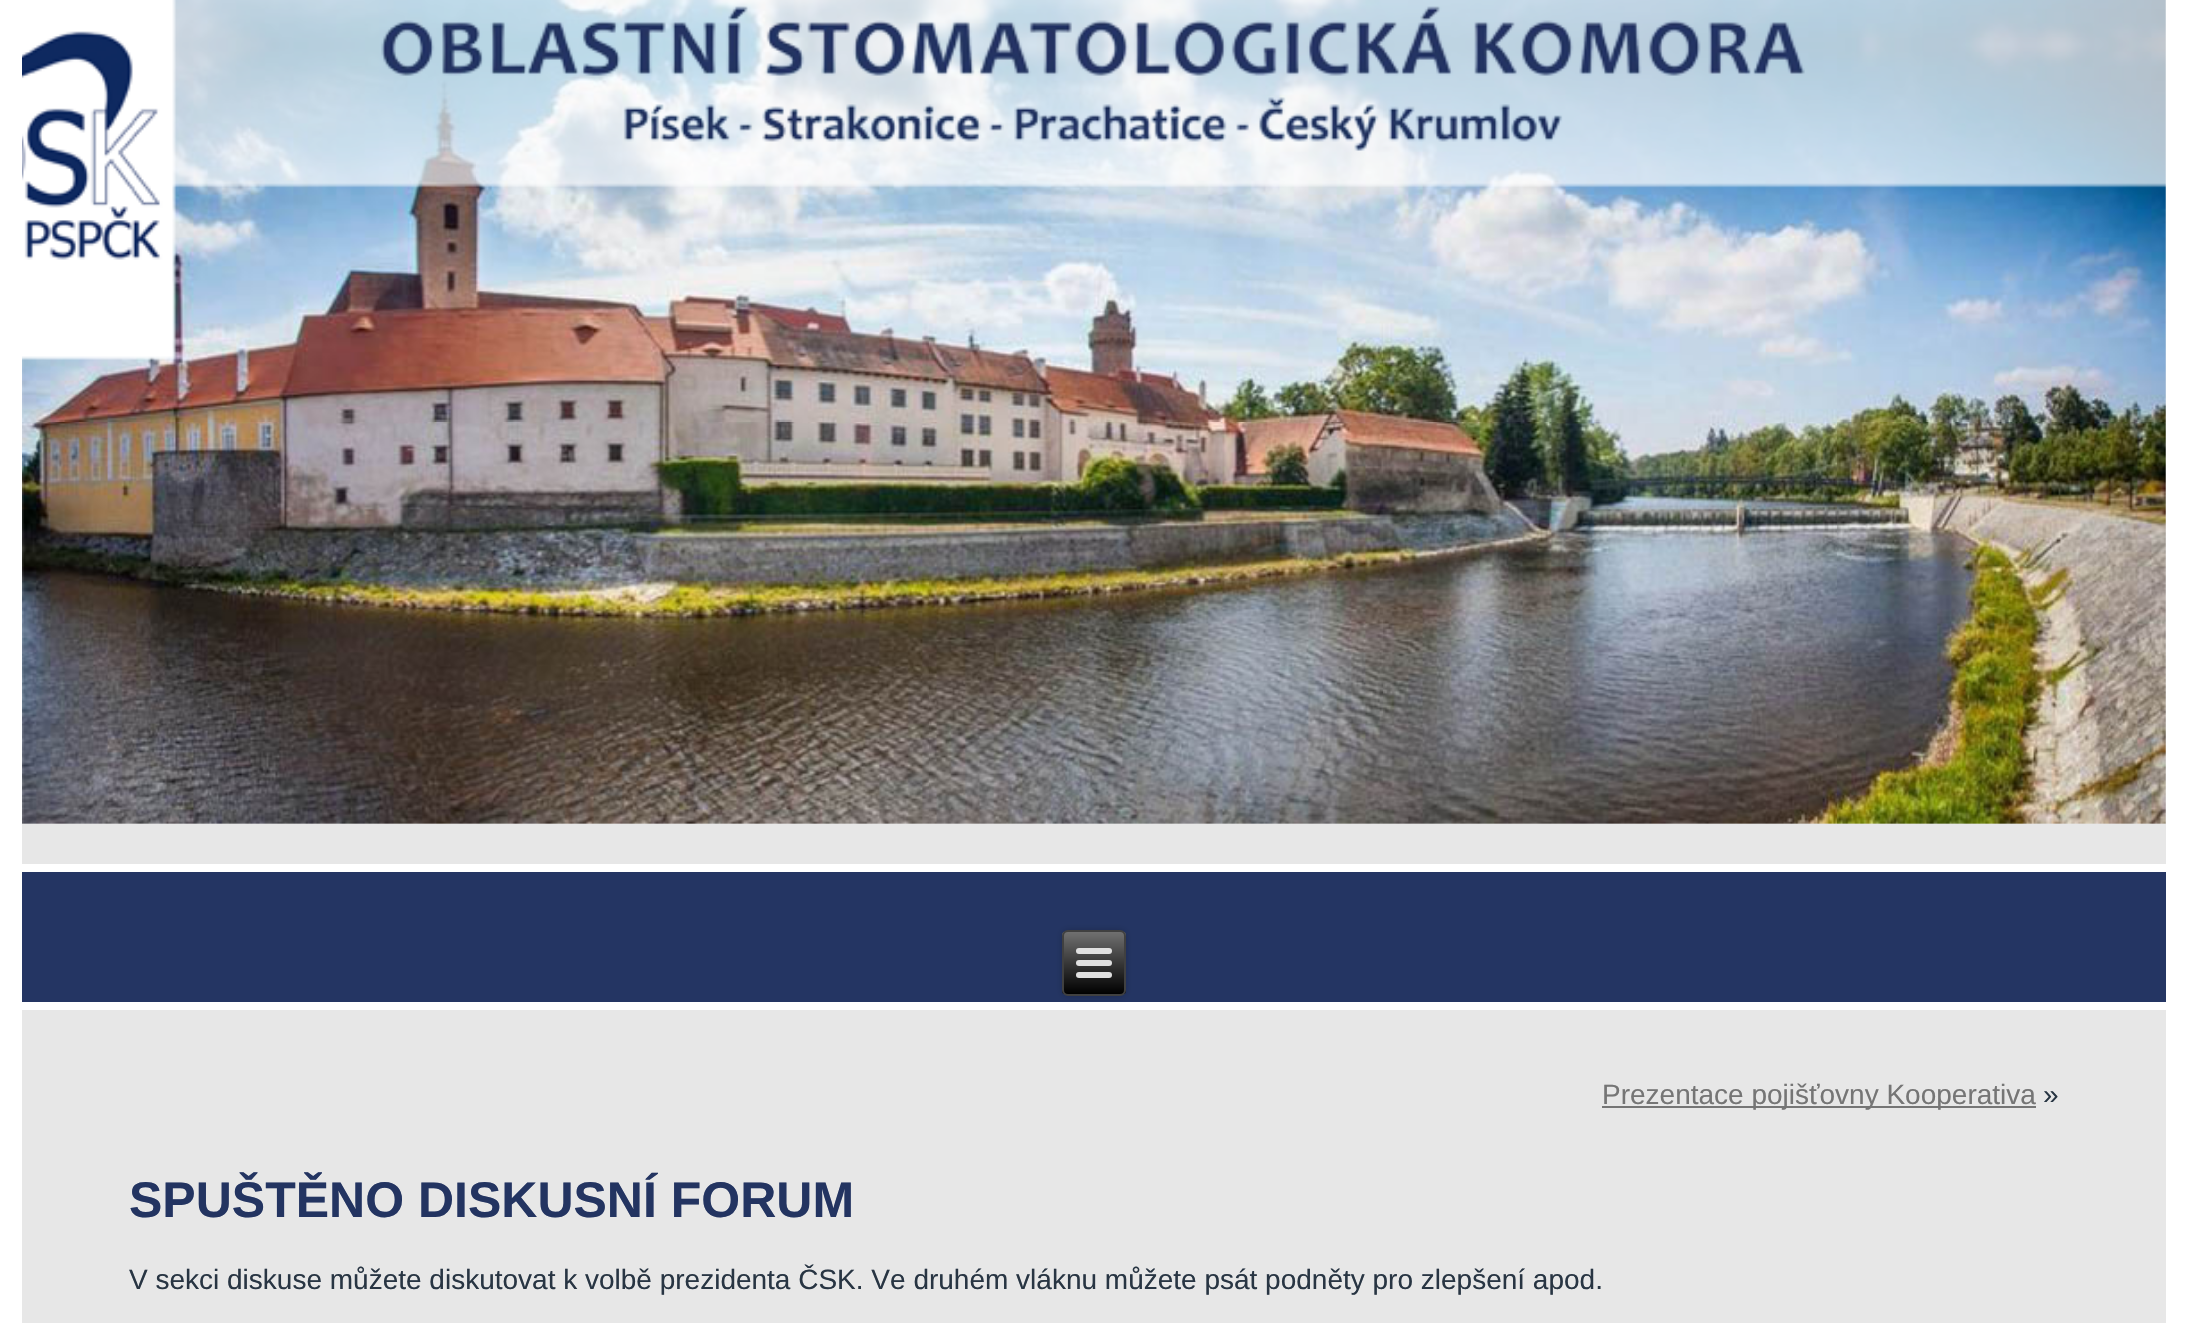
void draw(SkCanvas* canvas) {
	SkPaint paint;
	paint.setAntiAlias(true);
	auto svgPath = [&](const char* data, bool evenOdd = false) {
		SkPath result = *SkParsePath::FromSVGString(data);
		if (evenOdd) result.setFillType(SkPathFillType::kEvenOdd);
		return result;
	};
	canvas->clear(0xffffffff);
	paint.setColor(0xffe7e7e7);
	canvas->drawRect(SkRect::MakeXYWH(22, 0, 2144, 1323), paint);
	canvas->drawImageRect(SkImages::DeferredFromEncodedData(SkData::MakeFromFileName("img1.png")), SkRect::MakeXYWH(22, 0, 2144, 824), SkSamplingOptions());
	canvas->drawImageRect(SkImages::DeferredFromEncodedData(SkData::MakeFromFileName("img2.png")), SkRect::MakeXYWH(22, 0, 2144, 360), SkSamplingOptions());
	paint.setColor(0xff243563);
	canvas->drawRect(SkRect::MakeXYWH(22, 872, 2144, 130), paint);
	paint.setColor(0xffffffff);
	canvas->drawRect(SkRect::MakeXYWH(22, 864, 2144, 8), paint);
	canvas->drawRect(SkRect::MakeXYWH(22, 1002, 2144, 8), paint);
	paint.setColor(0x33000000);
	paint.setMaskFilter(SkMaskFilter::MakeBlur(kNormal_SkBlurStyle, 3));
	canvas->drawRoundRect(SkRect::MakeXYWH(1062, 930, 64, 66), 6, 6, paint);
	paint.setMaskFilter(nullptr);
	canvas->save();
	canvas->clipPath(svgPath("M1068 930H1120C1123.5 930 1126 932.5 1126 936V990C1126 993.5 1123.5 996 1120 996H1068C1064.5 996 1062 993.5 1062 990V936C1062 932.5 1064.5 930 1068 930Z"), true);
	{
		const SkColor colors[] = {0xff707070, 0xff000000};
		const float stops[] = {0, 1};
		const SkPoint ends[] = {{1094, 932}, {1094, 994}};
		paint.setShader(SkGradientShader::MakeLinear(ends, colors, stops, 2, SkTileMode::kClamp));
		paint.setAlpha(255);
	}
	canvas->drawRect(SkRect::MakeXYWH(1062, 932, 64, 62), paint);
	canvas->restore();
	paint.setStroke(true);
	paint.setStrokeWidth(2);
	paint.setShader(nullptr);
	paint.setColor(0xff404040);
	canvas->drawRoundRect(SkRect::MakeXYWH(1063, 931, 62, 64), 5, 5, paint);
	paint.setStroke(false);
	paint.setColor(0xffe0e0e0);
	canvas->drawRoundRect(SkRect::MakeXYWH(1076, 948, 36, 6), 3, 3, paint);
	canvas->drawRoundRect(SkRect::MakeXYWH(1076, 960, 36, 6), 3, 3, paint);
	canvas->drawRoundRect(SkRect::MakeXYWH(1076, 972, 36, 6), 3, 3, paint);
	paint.setColor(0xff757575);
	canvas->drawRect(SkRect::MakeXYWH(1602, 1106, 434, 2), paint);
	SkFont f1(fontMgr->matchFamilyStyle("Liberation Sans", SkFontStyle::Normal()), 28);
	f1.setSubpixel(true);
	canvas->drawString("Prezentace pojišťovny Kooperativa", 1602, 1104, f1, paint);
	paint.setColor(0xff283543);
	canvas->drawString("»", 2043, 1104, f1, paint);
	SkFont f2(fontMgr->matchFamilyStyle("Liberation Sans", SkFontStyle::Bold()), 50);
	f2.setSubpixel(true);
	paint.setColor(0xff233461);
	canvas->drawString("SPUŠTĚNO DISKUSNÍ FORUM", 129, 1217, f2, paint);
	paint.setColor(0xff283543);
	canvas->drawString("V sekci diskuse můžete diskutovat k volbě prezidenta ČSK. Ve druhém vláknu můžete psát podněty pro zlepšení apod.", 129, 1289, f1, paint);
}
